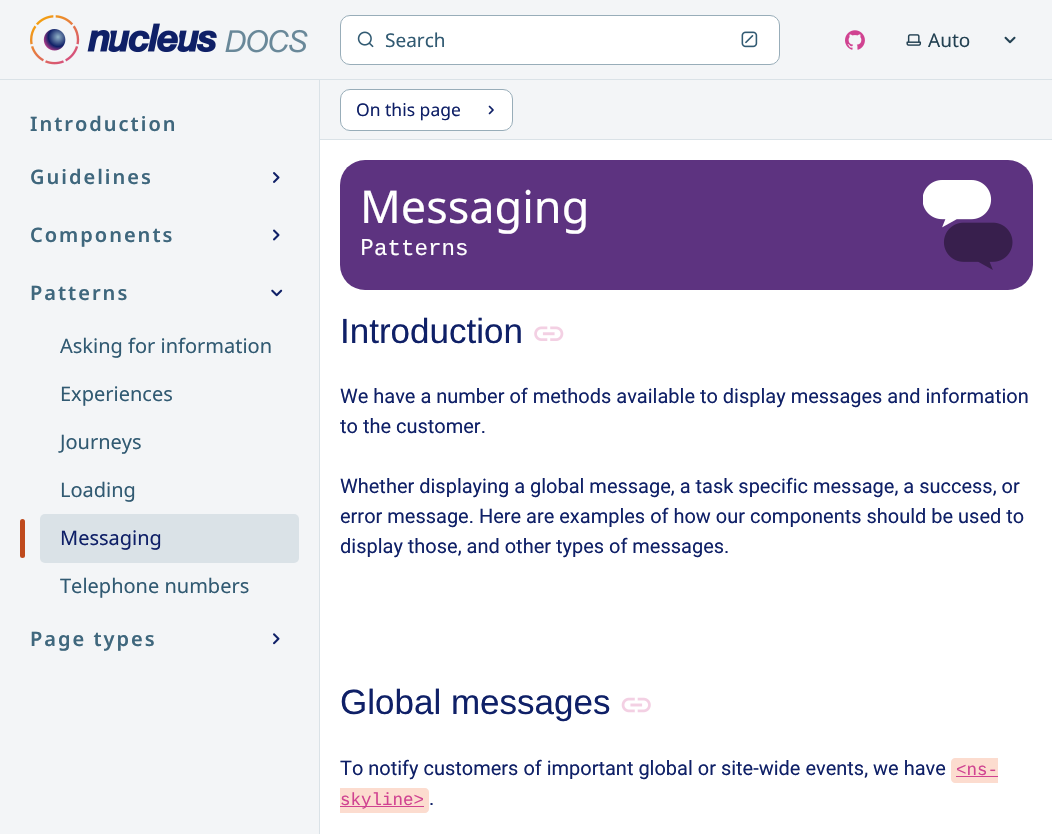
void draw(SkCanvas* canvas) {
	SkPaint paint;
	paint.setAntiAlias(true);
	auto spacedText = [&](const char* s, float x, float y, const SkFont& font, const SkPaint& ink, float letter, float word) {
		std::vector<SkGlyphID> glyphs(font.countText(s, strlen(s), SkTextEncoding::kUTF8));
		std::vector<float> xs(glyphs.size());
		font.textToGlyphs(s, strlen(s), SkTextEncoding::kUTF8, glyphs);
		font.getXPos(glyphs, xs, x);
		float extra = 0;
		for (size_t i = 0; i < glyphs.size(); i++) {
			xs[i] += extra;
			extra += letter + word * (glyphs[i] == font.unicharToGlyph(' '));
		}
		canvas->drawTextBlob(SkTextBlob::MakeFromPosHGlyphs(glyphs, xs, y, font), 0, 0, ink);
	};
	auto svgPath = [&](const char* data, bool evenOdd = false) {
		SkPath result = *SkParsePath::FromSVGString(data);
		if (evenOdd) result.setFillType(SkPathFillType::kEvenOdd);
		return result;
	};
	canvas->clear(0xffffffff);
	paint.setColor(0xfff3f5f7);
	canvas->drawRect(SkRect::MakeXYWH(0, 0, 1052, 79), paint);
	paint.setColor(0xffdae2e7);
	canvas->drawRect(SkRect::MakeXYWH(0, 79, 1052, 1), paint);
	canvas->drawImageRect(SkImages::DeferredFromEncodedData(SkData::MakeFromFileName("img1.png")), SkRect::MakeXYWH(30, 15, 278, 50), SkSamplingOptions());
	paint.setColor(0xffffffff);
	canvas->drawRoundRect(SkRect::MakeXYWH(340.5, 15.5, 439, 49), 9.5, 9.5, paint);
	paint.setStroke(true);
	paint.setStrokeWidth(1);
	paint.setColor(0xff98adb9);
	canvas->drawRoundRect(SkRect::MakeXYWH(340.5, 15.5, 439, 49), 9.5, 9.5, paint);
	canvas->drawImageRect(SkImages::DeferredFromEncodedData(SkData::MakeFromFileName("img2.png")), SkRect::MakeXYWH(357, 31, 17, 17), SkSamplingOptions());
	SkFont f1(fontMgr->matchFamilyStyle("Noto Sans", SkFontStyle::Normal()), 19);
	f1.setSubpixel(true);
	paint.setStroke(false);
	paint.setColor(0xff315a72);
	canvas->drawString("Search", 385, 47, f1, paint);
	canvas->drawImageRect(SkImages::DeferredFromEncodedData(SkData::MakeFromFileName("img3.png")), SkRect::MakeXYWH(741, 31, 17, 17), SkSamplingOptions());
	canvas->drawImageRect(SkImages::DeferredFromEncodedData(SkData::MakeFromFileName("img4.png")), SkRect::MakeXYWH(845, 30, 20, 20), SkSamplingOptions());
	canvas->drawImageRect(SkImages::DeferredFromEncodedData(SkData::MakeFromFileName("img5.png")), SkRect::MakeXYWH(906, 34, 16, 12), SkSamplingOptions());
	paint.setColor(0xff234152);
	canvas->drawString("Auto", 928, 47, f1, paint);
	canvas->drawImageRect(SkImages::DeferredFromEncodedData(SkData::MakeFromFileName("img6.png")), SkRect::MakeXYWH(1004, 36, 12, 8), SkSamplingOptions());
	paint.setColor(0xfff3f5f7);
	canvas->drawRect(SkRect::MakeXYWH(0, 80, 319, 754), paint);
	paint.setColor(0xffdae2e7);
	canvas->drawRect(SkRect::MakeXYWH(319, 80, 1, 754), paint);
	SkFont f2(fontMgr->matchFamilyStyle("Noto Sans", SkFontStyle(600, SkFontStyle::kNormal_Width, SkFontStyle::kUpright_Slant)), 20);
	f2.setSubpixel(true);
	paint.setColor(0xff3f677d);
	spacedText("Introduction", 30, 131, f2, paint, 2, 0);
	spacedText("Guidelines", 30, 184, f2, paint, 2, 0);
	canvas->drawImageRect(SkImages::DeferredFromEncodedData(SkData::MakeFromFileName("img7.png")), SkRect::MakeXYWH(273, 172, 7, 11), SkSamplingOptions());
	spacedText("Components", 30, 242, f2, paint, 2, 0);
	canvas->drawImageRect(SkImages::DeferredFromEncodedData(SkData::MakeFromFileName("img8.png")), SkRect::MakeXYWH(273, 229, 7, 12), SkSamplingOptions());
	spacedText("Patterns", 30, 300, f2, paint, 2, 0);
	canvas->drawImageRect(SkImages::DeferredFromEncodedData(SkData::MakeFromFileName("img9.png")), SkRect::MakeXYWH(271, 289, 12, 8), SkSamplingOptions());
	SkFont f3(fontMgr->matchFamilyStyle("Noto Sans", SkFontStyle::Normal()), 20);
	f3.setSubpixel(true);
	paint.setColor(0xff315a72);
	canvas->drawString("Asking for information", 60, 353, f3, paint);
	canvas->drawString("Experiences", 60, 401, f3, paint);
	canvas->drawString("Journeys", 60, 449, f3, paint);
	canvas->drawString("Loading", 60, 497, f3, paint);
	paint.setColor(0xffdae2e7);
	canvas->drawRoundRect(SkRect::MakeXYWH(40, 514, 259, 49), 5, 5, paint);
	paint.setColor(0xffbf4a1d);
	canvas->drawRoundRect(SkRect::MakeXYWH(20, 519, 5, 39), 2.5, 2.5, paint);
	paint.setColor(0xff0f2067);
	canvas->drawString("Messaging", 60, 545, f3, paint);
	paint.setColor(0xff315a72);
	canvas->drawString("Telephone numbers", 60, 593, f3, paint);
	paint.setColor(0xff3f677d);
	spacedText("Page types", 30, 646, f2, paint, 2, 0);
	canvas->drawImageRect(SkImages::DeferredFromEncodedData(SkData::MakeFromFileName("img10.png")), SkRect::MakeXYWH(273, 633, 7, 12), SkSamplingOptions());
	paint.setColor(0xfff3f5f7);
	canvas->drawRect(SkRect::MakeXYWH(320, 80, 732, 59), paint);
	paint.setColor(0xffdae2e7);
	canvas->drawRect(SkRect::MakeXYWH(320, 139, 732, 1), paint);
	paint.setColor(0xffffffff);
	canvas->drawRoundRect(SkRect::MakeXYWH(340.5, 89.5, 172, 41), 9.5, 9.5, paint);
	paint.setStroke(true);
	paint.setColor(0xff98adb9);
	canvas->drawRoundRect(SkRect::MakeXYWH(340.5, 89.5, 172, 41), 9.5, 9.5, paint);
	SkFont f4(fontMgr->matchFamilyStyle("Noto Sans", SkFontStyle::Normal()), 17.5);
	f4.setSubpixel(true);
	paint.setStroke(false);
	paint.setColor(0xff0f2067);
	canvas->drawString("On this page", 356, 116, f4, paint);
	canvas->drawImageRect(SkImages::DeferredFromEncodedData(SkData::MakeFromFileName("img11.png")), SkRect::MakeXYWH(488, 105, 6, 10), SkSamplingOptions());
	SkFont f5(fontMgr->matchFamilyStyle("Liberation Sans", SkFontStyle::Normal()), 35);
	f5.setSubpixel(true);
	canvas->drawString("Introduction", 340, 343, f5, paint);
	canvas->drawImageRect(SkImages::DeferredFromEncodedData(SkData::MakeFromFileName("img12.png")), SkRect::MakeXYWH(534, 326, 30, 15), SkSamplingOptions());
	SkFont f6(fontMgr->matchFamilyStyle("Roboto", SkFontStyle::Normal()), 20);
	f6.setSubpixel(true);
	canvas->drawString("We have a number of methods available to display messages and information", 340, 403, f6, paint);
	canvas->drawString("to the customer.", 340, 433, f6, paint);
	canvas->drawString("Whether displaying a global message, a task specific message, a success, or", 340, 493, f6, paint);
	canvas->drawString("error message. Here are examples of how our components should be used to", 340, 523, f6, paint);
	canvas->drawString("display those, and other types of messages.", 340, 553, f6, paint);
	canvas->drawString("Global messages", 340, 714, f5, paint);
	canvas->drawImageRect(SkImages::DeferredFromEncodedData(SkData::MakeFromFileName("img13.png")), SkRect::MakeXYWH(621, 697, 30, 16), SkSamplingOptions());
	canvas->drawString("To notify customers of important global or site-wide events, we have", 340, 775, f6, paint);
	paint.setColor(0xfffcdccf);
	canvas->drawPath(svgPath("M955 758H998V783H955C953 783 951 781 951 779V762C951 760 953 758 955 758Z"), paint);
	SkFont f7(fontMgr->matchFamilyStyle("Liberation Mono", SkFontStyle::Normal()), 17.5);
	f7.setSubpixel(true);
	paint.setColor(0xffd04391);
	canvas->drawString("<ns-", 956, 775, f7, paint);
	canvas->drawRect(SkRect::MakeXYWH(956, 776, 42, 1), paint);
	paint.setColor(0xfffcdccf);
	canvas->drawPath(svgPath("M340 788H425C427 788 429 790 429 792V809C429 811 427 813 425 813H340Z"), paint);
	paint.setColor(0xffd04391);
	canvas->drawRect(SkRect::MakeXYWH(340, 806, 84, 1), paint);
	canvas->drawString("skyline>", 340, 805, f7, paint);
	paint.setColor(0xff0f2067);
	canvas->drawString(".", 429, 805, f6, paint);
	paint.setColor(0xff5d3380);
	canvas->drawRoundRect(SkRect::MakeXYWH(340, 160, 693, 130), 25, 25, paint);
	SkFont f8(fontMgr->matchFamilyStyle("Noto Sans", SkFontStyle::Normal()), 45);
	f8.setSubpixel(true);
	paint.setColor(0xffffffff);
	canvas->drawString("Messaging", 360, 223, f8, paint);
	SkFont f9(fontMgr->matchFamilyStyle("Noto Sans", SkFontStyle::Normal()), 22.5);
	f9.setSubpixel(true);
	canvas->drawString("P", 360, 255, f9, paint);
	SkFont f10(fontMgr->matchFamilyStyle("Liberation Mono", SkFontStyle::Normal()), 22.5);
	f10.setSubpixel(true);
	canvas->drawString("atterns", 374, 255, f10, paint);
	canvas->drawImageRect(SkImages::DeferredFromEncodedData(SkData::MakeFromFileName("img14.png")), SkRect::MakeXYWH(923, 180, 90, 90), SkSamplingOptions());
}
